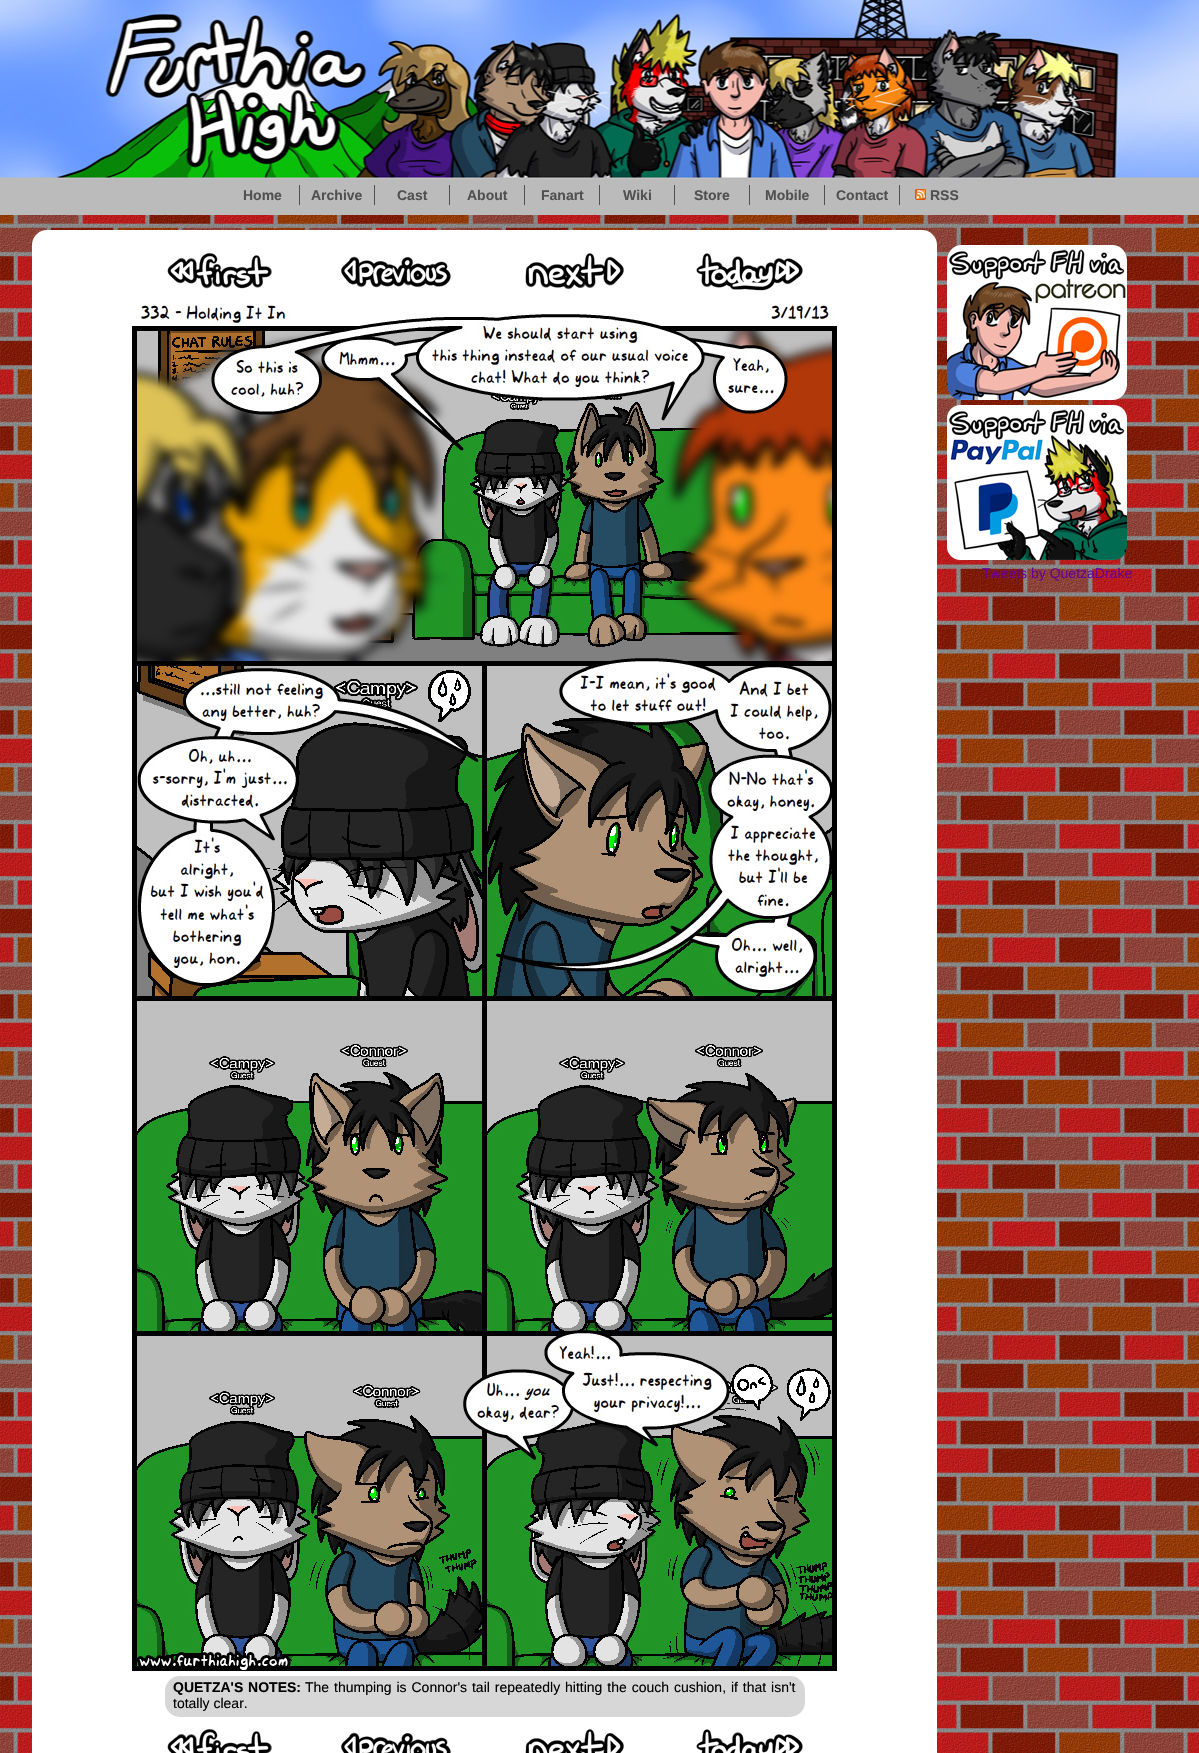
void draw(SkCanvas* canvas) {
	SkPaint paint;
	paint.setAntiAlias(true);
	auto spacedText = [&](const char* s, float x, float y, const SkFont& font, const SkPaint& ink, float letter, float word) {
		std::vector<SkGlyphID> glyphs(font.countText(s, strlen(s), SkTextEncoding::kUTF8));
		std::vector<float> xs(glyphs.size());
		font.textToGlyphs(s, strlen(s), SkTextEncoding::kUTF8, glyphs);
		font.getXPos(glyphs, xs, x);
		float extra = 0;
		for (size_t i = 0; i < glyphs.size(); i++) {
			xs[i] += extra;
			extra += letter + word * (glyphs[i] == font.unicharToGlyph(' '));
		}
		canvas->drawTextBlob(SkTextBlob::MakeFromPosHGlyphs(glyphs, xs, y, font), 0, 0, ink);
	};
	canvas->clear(0xffffffff);
	canvas->drawImageRect(SkImages::DeferredFromEncodedData(SkData::MakeFromFileName("img1.png")), SkRect::MakeXYWH(0, 215, 1199, 1538), SkSamplingOptions());
	canvas->drawImageRect(SkImages::DeferredFromEncodedData(SkData::MakeFromFileName("img2.png")), SkRect::MakeXYWH(0, 0, 1199, 215), SkSamplingOptions());
	SkFont f1(fontMgr->matchFamilyStyle("Liberation Sans", SkFontStyle::Bold()), 14);
	f1.setSubpixel(true);
	paint.setColor(0xff505050);
	canvas->drawString("Home", 243, 200, f1, paint);
	canvas->drawRect(SkRect::MakeXYWH(299, 185, 1, 20), paint);
	canvas->drawString("Archive", 311, 200, f1, paint);
	canvas->drawRect(SkRect::MakeXYWH(374, 185, 1, 20), paint);
	canvas->drawString("Cast", 397, 200, f1, paint);
	canvas->drawRect(SkRect::MakeXYWH(449, 185, 1, 20), paint);
	canvas->drawString("About", 467, 200, f1, paint);
	canvas->drawRect(SkRect::MakeXYWH(524, 185, 1, 20), paint);
	canvas->drawString("Fanart", 541, 200, f1, paint);
	canvas->drawRect(SkRect::MakeXYWH(599, 185, 1, 20), paint);
	canvas->drawString("Wiki", 623, 200, f1, paint);
	canvas->drawRect(SkRect::MakeXYWH(674, 185, 1, 20), paint);
	canvas->drawString("Store", 694, 200, f1, paint);
	canvas->drawRect(SkRect::MakeXYWH(749, 185, 1, 20), paint);
	canvas->drawString("Mobile", 765, 200, f1, paint);
	canvas->drawRect(SkRect::MakeXYWH(824, 185, 1, 20), paint);
	canvas->drawString("Contact", 836, 200, f1, paint);
	canvas->drawRect(SkRect::MakeXYWH(899, 185, 1, 20), paint);
	canvas->drawImageRect(SkImages::DeferredFromEncodedData(SkData::MakeFromFileName("img3.png")), SkRect::MakeXYWH(915, 189, 11, 11), SkSamplingOptions());
	canvas->drawString("RSS", 930, 200, f1, paint);
	canvas->drawImageRect(SkImages::DeferredFromEncodedData(SkData::MakeFromFileName("img4.png")), SkRect::MakeXYWH(947, 245, 180, 155), SkSamplingOptions());
	canvas->drawImageRect(SkImages::DeferredFromEncodedData(SkData::MakeFromFileName("img5.png")), SkRect::MakeXYWH(947, 405, 180, 155), SkSamplingOptions());
	SkFont f2(fontMgr->matchFamilyStyle("Liberation Sans", SkFontStyle::Normal()), 14);
	f2.setSubpixel(true);
	paint.setColor(0xff660099);
	canvas->drawString("Tweets by QuetzaDrake", 982, 578, f2, paint);
	paint.setColor(0xffffffff);
	canvas->drawRoundRect(SkRect::MakeXYWH(32, 230, 905, 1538), 15, 15, paint);
	canvas->drawImageRect(SkImages::DeferredFromEncodedData(SkData::MakeFromFileName("img6.png")), SkRect::MakeXYWH(167, 253, 105, 36), SkSamplingOptions());
	canvas->drawImageRect(SkImages::DeferredFromEncodedData(SkData::MakeFromFileName("img7.png")), SkRect::MakeXYWH(341, 256, 110, 32), SkSamplingOptions());
	canvas->drawImageRect(SkImages::DeferredFromEncodedData(SkData::MakeFromFileName("img8.png")), SkRect::MakeXYWH(525, 253, 99, 37), SkSamplingOptions());
	canvas->drawImageRect(SkImages::DeferredFromEncodedData(SkData::MakeFromFileName("img9.png")), SkRect::MakeXYWH(696, 253, 107, 38), SkSamplingOptions());
	canvas->drawImageRect(SkImages::DeferredFromEncodedData(SkData::MakeFromFileName("img10.png")), SkRect::MakeXYWH(132, 304, 705, 1367), SkSamplingOptions());
	paint.setColor(0xffd7d7d7);
	canvas->drawRoundRect(SkRect::MakeXYWH(165, 1676, 640, 41), 15, 15, paint);
	paint.setColor(0xff000000);
	spacedText("QUETZA'S NOTES:", 173, 1692, f1, paint, 0, 1);
	spacedText("The thumping is Connor's tail repeatedly hitting the couch cushion, if that isn't", 305, 1692, f2, paint, 0, 1);
	canvas->drawString("totally clear.", 173, 1708, f2, paint);
	canvas->drawImageRect(SkImages::DeferredFromEncodedData(SkData::MakeFromFileName("img11.png")), SkRect::MakeXYWH(167, 1729, 105, 24), SkSamplingOptions());
	canvas->drawImageRect(SkImages::DeferredFromEncodedData(SkData::MakeFromFileName("img12.png")), SkRect::MakeXYWH(341, 1732, 110, 21), SkSamplingOptions());
	canvas->drawImageRect(SkImages::DeferredFromEncodedData(SkData::MakeFromFileName("img13.png")), SkRect::MakeXYWH(525, 1729, 99, 24), SkSamplingOptions());
	canvas->drawImageRect(SkImages::DeferredFromEncodedData(SkData::MakeFromFileName("img14.png")), SkRect::MakeXYWH(696, 1729, 107, 24), SkSamplingOptions());
}
